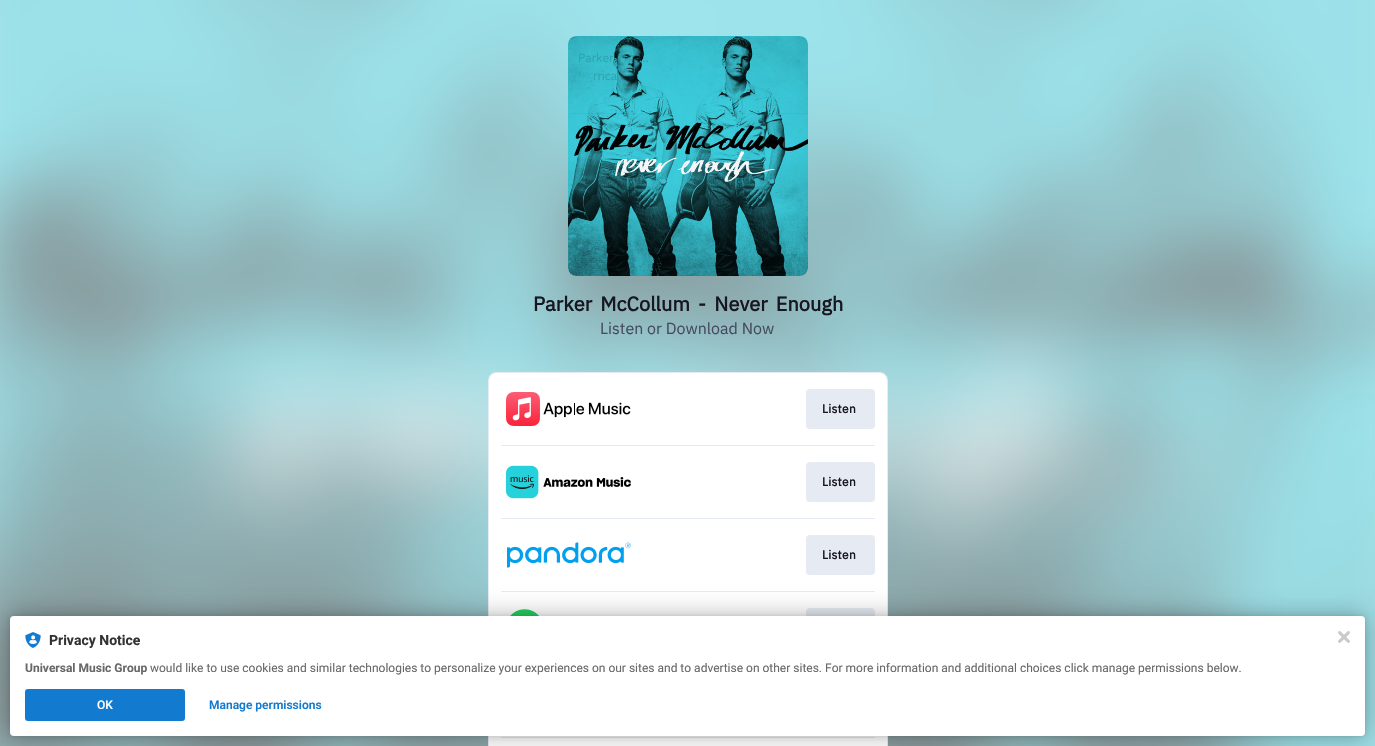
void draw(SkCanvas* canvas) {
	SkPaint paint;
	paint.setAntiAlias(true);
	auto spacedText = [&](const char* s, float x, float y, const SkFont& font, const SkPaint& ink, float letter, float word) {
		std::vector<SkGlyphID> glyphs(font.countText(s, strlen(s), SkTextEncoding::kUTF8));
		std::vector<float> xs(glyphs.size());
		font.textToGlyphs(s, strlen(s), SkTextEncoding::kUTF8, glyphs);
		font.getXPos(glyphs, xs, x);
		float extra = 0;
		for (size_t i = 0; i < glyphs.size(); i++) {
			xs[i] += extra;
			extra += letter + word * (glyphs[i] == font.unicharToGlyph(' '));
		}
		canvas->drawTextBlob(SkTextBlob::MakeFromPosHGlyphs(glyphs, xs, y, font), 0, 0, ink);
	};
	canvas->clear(0xffffffff);
	canvas->drawImageRect(SkImages::DeferredFromEncodedData(SkData::MakeFromFileName("img1.png")), SkRect::MakeXYWH(0, 0, 1375, 746), SkSamplingOptions());
	canvas->drawImageRect(SkImages::DeferredFromEncodedData(SkData::MakeFromFileName("img2.png")), SkRect::MakeXYWH(568, 36, 240, 240), SkSamplingOptions());
	SkFont f1(fontMgr->matchFamilyStyle("IBM Plex Sans", SkFontStyle::Normal()), 12);
	f1.setSubpixel(true);
	paint.setColor(0xff2fa2af);
	canvas->drawString("Parker", 578, 62, f1, paint);
	canvas->drawString("…", 639, 62, f1, paint);
	canvas->drawString("rrica", 593, 80, f1, paint);
	SkFont f2(fontMgr->matchFamilyStyle("IBM Plex Sans", SkFontStyle::Bold()), 20);
	f2.setSubpixel(true);
	paint.setColor(0xff181721);
	spacedText("Parker McCollum - Never Enough", 533, 311, f2, paint, 0, 3.5);
	SkFont f3(fontMgr->matchFamilyStyle("IBM Plex Sans", SkFontStyle::Normal()), 16);
	f3.setSubpixel(true);
	paint.setColor(0xff454b5f);
	canvas->drawString("Listen or Download Now", 600, 334, f3, paint);
	paint.setStroke(true);
	paint.setStrokeWidth(1);
	paint.setColor(0xffe6eaf2);
	canvas->drawRoundRect(SkRect::MakeXYWH(488.5, 372.5, 399, 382), 7.5, 7.5, paint);
	paint.setStroke(false);
	paint.setColor(0xffffffff);
	canvas->drawRoundRect(SkRect::MakeXYWH(489, 373, 398, 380), 7, 7, paint);
	canvas->drawImageRect(SkImages::DeferredFromEncodedData(SkData::MakeFromFileName("img3.png")), SkRect::MakeXYWH(506, 392, 125, 34), SkSamplingOptions());
	paint.setColor(0xffe6eaf2);
	canvas->drawRoundRect(SkRect::MakeXYWH(806, 389, 69, 40), 4, 4, paint);
	SkFont f4(fontMgr->matchFamilyStyle("IBM Plex Sans", SkFontStyle::Bold()), 12);
	f4.setSubpixel(true);
	paint.setColor(0xff181721);
	spacedText("Listen", 822, 413, f4, paint, 0.25, 0);
	paint.setColor(0xffe6eaf2);
	canvas->drawRect(SkRect::MakeXYWH(501, 445, 374, 1), paint);
	canvas->drawImageRect(SkImages::DeferredFromEncodedData(SkData::MakeFromFileName("img4.png")), SkRect::MakeXYWH(506, 465, 125, 34), SkSamplingOptions());
	canvas->drawRoundRect(SkRect::MakeXYWH(806, 462, 69, 40), 4, 4, paint);
	paint.setColor(0xff181721);
	spacedText("Listen", 822, 486, f4, paint, 0.25, 0);
	paint.setColor(0xffe6eaf2);
	canvas->drawRect(SkRect::MakeXYWH(501, 518, 374, 1), paint);
	canvas->drawImageRect(SkImages::DeferredFromEncodedData(SkData::MakeFromFileName("img5.png")), SkRect::MakeXYWH(507, 542, 124, 26), SkSamplingOptions());
	canvas->drawRoundRect(SkRect::MakeXYWH(806, 535, 69, 40), 4, 4, paint);
	paint.setColor(0xff181721);
	spacedText("Listen", 822, 559, f4, paint, 0.25, 0);
	paint.setColor(0xffe6eaf2);
	canvas->drawRect(SkRect::MakeXYWH(501, 591, 374, 1), paint);
	canvas->drawImageRect(SkImages::DeferredFromEncodedData(SkData::MakeFromFileName("img6.png")), SkRect::MakeXYWH(510, 609, 29, 7), SkSamplingOptions());
	canvas->drawRoundRect(SkRect::MakeXYWH(806, 608, 69, 40), 4, 4, paint);
	canvas->drawRect(SkRect::MakeXYWH(501, 737, 374, 1), paint);
	paint.setColor(0x1f000000);
	paint.setMaskFilter(SkMaskFilter::MakeBlur(kNormal_SkBlurStyle, 2));
	canvas->drawRoundRect(SkRect::MakeXYWH(10, 616, 1355, 120), 4, 4, paint);
	paint.setMaskFilter(nullptr);
	paint.setColor(0x4d000000);
	paint.setMaskFilter(SkMaskFilter::MakeBlur(kNormal_SkBlurStyle, 12));
	canvas->drawRoundRect(SkRect::MakeXYWH(10, 616, 1355, 120), 4, 4, paint);
	paint.setMaskFilter(nullptr);
	paint.setColor(0xffffffff);
	canvas->drawRoundRect(SkRect::MakeXYWH(10, 616, 1355, 120), 4, 4, paint);
	canvas->drawImageRect(SkImages::DeferredFromEncodedData(SkData::MakeFromFileName("img7.png")), SkRect::MakeXYWH(25, 632, 16, 16), SkSamplingOptions());
	SkFont f5(fontMgr->matchFamilyStyle("Roboto", SkFontStyle::Bold()), 14);
	f5.setSubpixel(true);
	paint.setColor(0xff323232);
	canvas->drawString("Privacy Notice", 49, 645, f5, paint);
	SkFont f6(fontMgr->matchFamilyStyle("Roboto", SkFontStyle::Bold()), 12);
	f6.setSubpixel(true);
	paint.setColor(0xff686868);
	canvas->drawString("Universal Music Group", 25, 672, f6, paint);
	SkFont f7(fontMgr->matchFamilyStyle("Roboto", SkFontStyle::Normal()), 12);
	f7.setSubpixel(true);
	canvas->drawString("would like to use cookies and similar technologies to personalize your experiences on our sites and to advertise on other sites. For more information and additional choices click manage permissions below.", 150, 672, f7, paint);
	paint.setColor(0xff137bcf);
	canvas->drawRoundRect(SkRect::MakeXYWH(25, 689, 160, 32), 3, 3, paint);
	SkFont f8(fontMgr->matchFamilyStyle("Roboto", SkFontStyle(500, SkFontStyle::kNormal_Width, SkFontStyle::kUpright_Slant)), 12);
	f8.setSubpixel(true);
	paint.setColor(0xffffffff);
	canvas->drawString("OK", 97, 709, f8, paint);
	SkFont f9(fontMgr->matchFamilyStyle("Roboto", SkFontStyle(600, SkFontStyle::kNormal_Width, SkFontStyle::kUpright_Slant)), 12);
	f9.setSubpixel(true);
	paint.setColor(0xff137bcf);
	canvas->drawString("Manage permissions", 209, 709, f9, paint);
	canvas->drawImageRect(SkImages::DeferredFromEncodedData(SkData::MakeFromFileName("img8.png")), SkRect::MakeXYWH(1338, 631, 12, 12), SkSamplingOptions());
}
